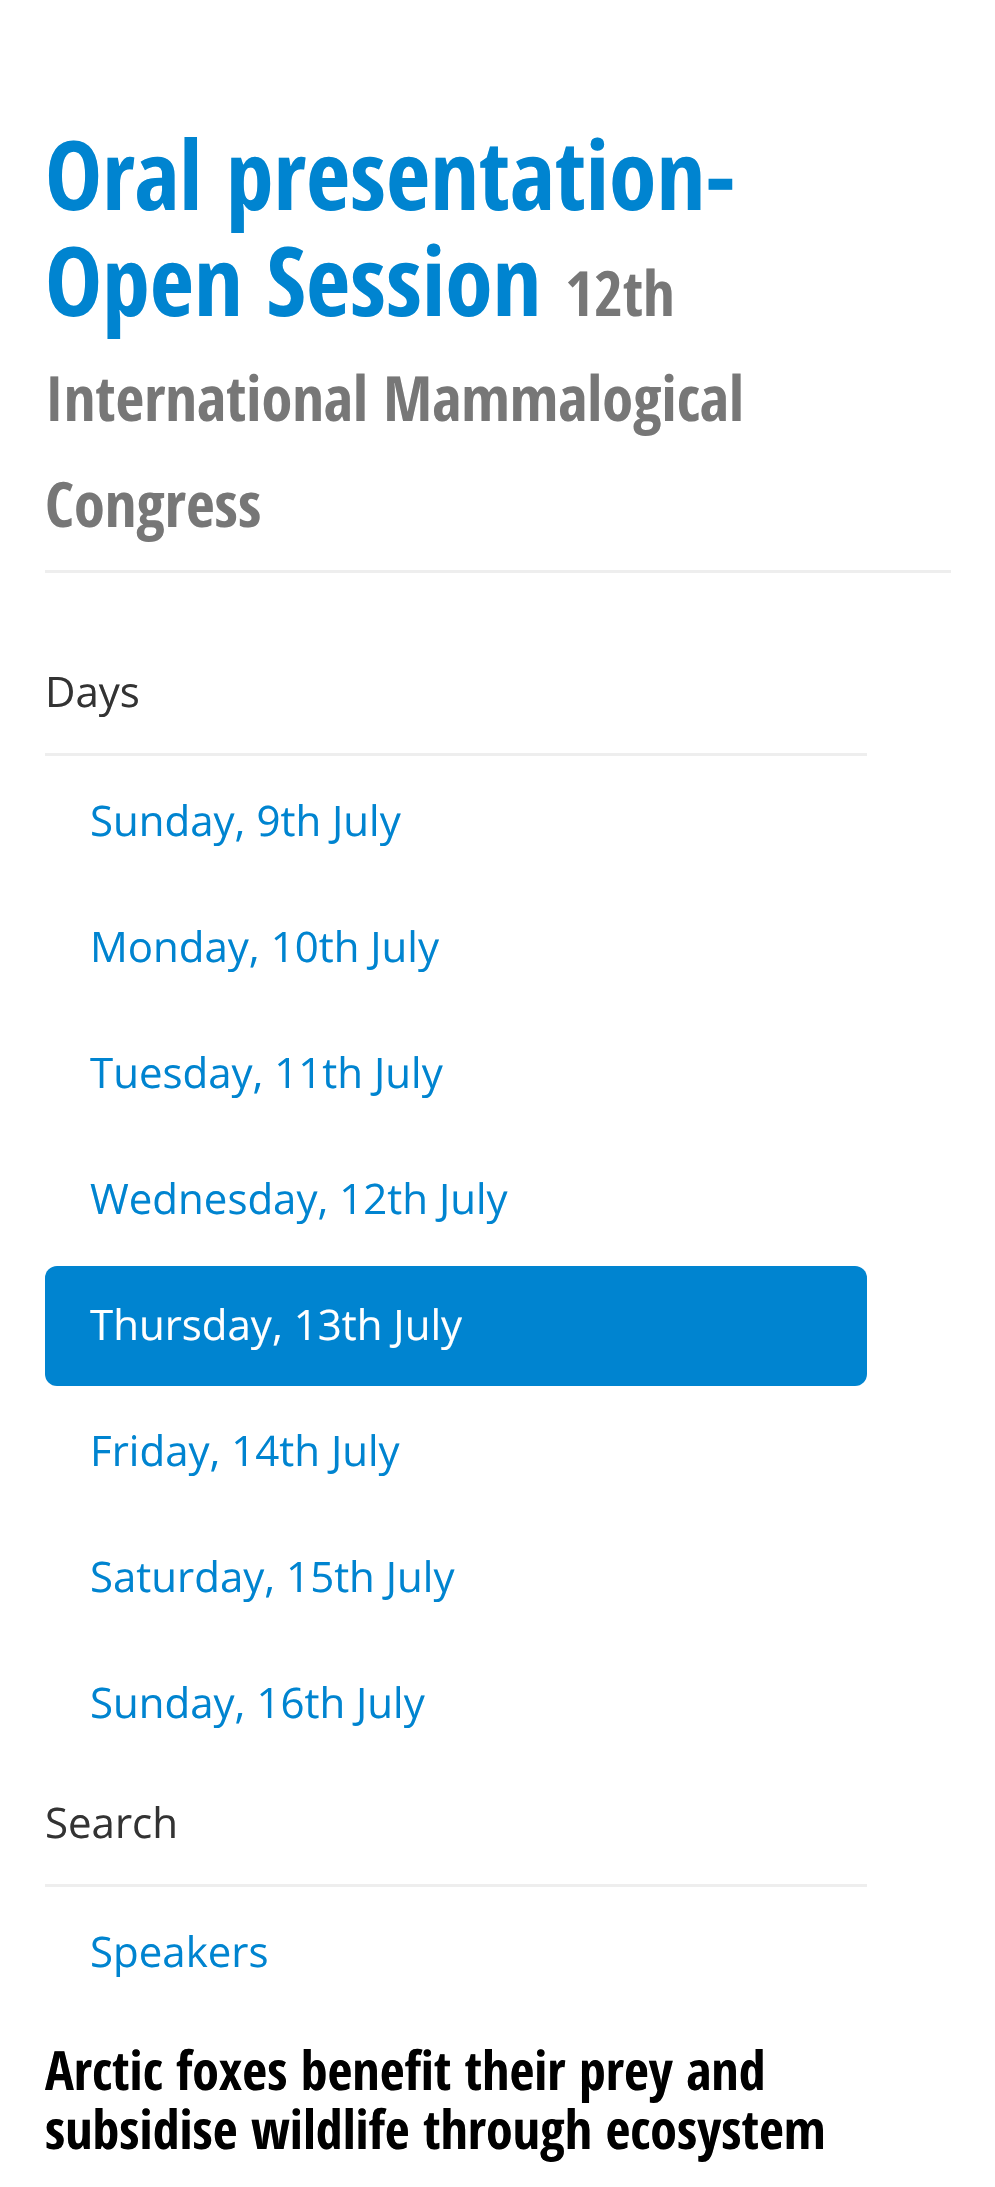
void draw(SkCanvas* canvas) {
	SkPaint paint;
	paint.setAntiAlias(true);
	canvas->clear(0xffffffff);
	paint.setColor(0xffeeeeee);
	canvas->drawRect(SkRect::MakeXYWH(45, 570, 906, 3), paint);
	SkFont f1(fontMgr->matchFamilyStyle("Open Sans Condensed", SkFontStyle::Bold()), 96);
	f1.setSubpixel(true);
	paint.setColor(0xff0084d0);
	canvas->drawString("Oral presentation-", 45, 210, f1, paint);
	canvas->drawString("Open Session", 45, 316, f1, paint);
	SkFont f2(fontMgr->matchFamilyStyle("Open Sans Condensed", SkFontStyle::Bold()), 62.4);
	f2.setSubpixel(true);
	paint.setColor(0xff777777);
	canvas->drawString("12th", 565, 316, f2, paint);
	canvas->drawString("International Mammalogical", 45, 421, f2, paint);
	canvas->drawString("Congress", 45, 527, f2, paint);
	paint.setColor(0xffeeeeee);
	canvas->drawRect(SkRect::MakeXYWH(45, 753, 822, 3), paint);
	SkFont f3(fontMgr->matchFamilyStyle("Open Sans", SkFontStyle::Normal()), 42);
	f3.setSubpixel(true);
	paint.setColor(0xff333333);
	canvas->drawString("Days", 45, 707, f3, paint);
	paint.setColor(0xff0084d0);
	canvas->drawString("Sunday, 9th July", 90, 836, f3, paint);
	canvas->drawString("Monday, 10th July", 90, 962, f3, paint);
	canvas->drawString("Tuesday, 11th July", 90, 1088, f3, paint);
	canvas->drawString("Wednesday, 12th July", 90, 1214, f3, paint);
	canvas->drawRoundRect(SkRect::MakeXYWH(45, 1266, 822, 120), 12, 12, paint);
	paint.setColor(0xffffffff);
	canvas->drawString("Thursday, 13th July", 90, 1340, f3, paint);
	paint.setColor(0xff0084d0);
	canvas->drawString("Friday, 14th July", 90, 1466, f3, paint);
	canvas->drawString("Saturday, 15th July", 90, 1592, f3, paint);
	canvas->drawString("Sunday, 16th July", 90, 1718, f3, paint);
	paint.setColor(0xffeeeeee);
	canvas->drawRect(SkRect::MakeXYWH(45, 1884, 822, 3), paint);
	paint.setColor(0xff333333);
	canvas->drawString("Search", 45, 1838, f3, paint);
	paint.setColor(0xff0084d0);
	canvas->drawString("Speakers", 90, 1967, f3, paint);
	SkFont f4(fontMgr->matchFamilyStyle("Open Sans Condensed", SkFontStyle::Bold()), 54);
	f4.setSubpixel(true);
	paint.setColor(0xff000000);
	canvas->drawString("Arctic foxes benefit their prey and", 45, 2090, f4, paint);
	canvas->drawString("subsidise wildlife through ecosystem", 45, 2149, f4, paint);
}
